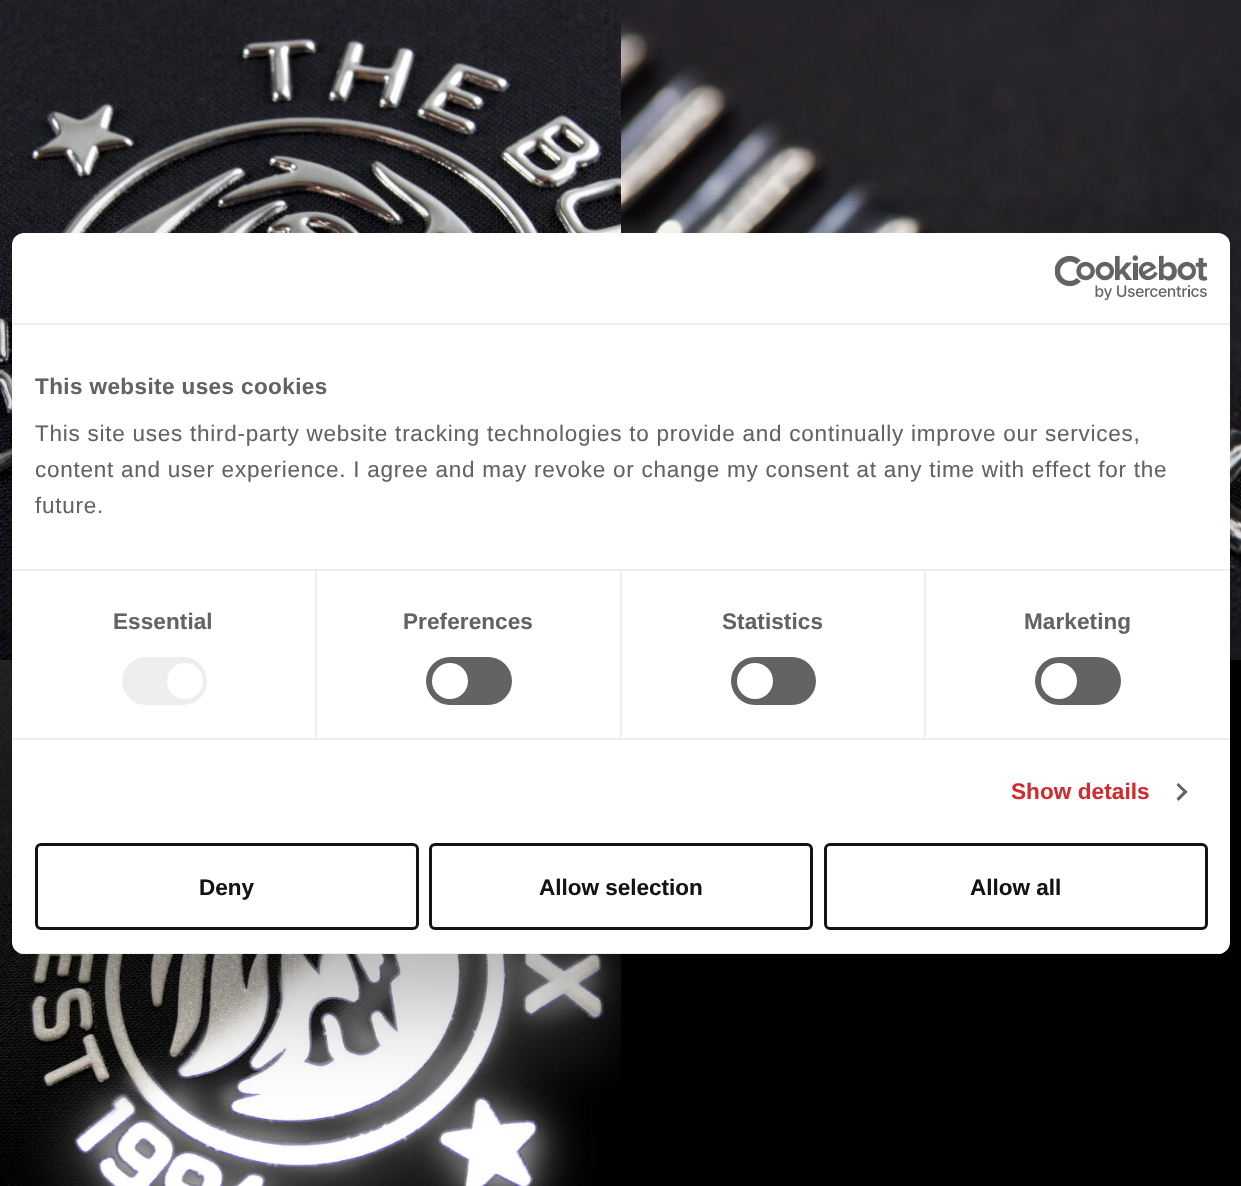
void draw(SkCanvas* canvas) {
	SkPaint paint;
	paint.setAntiAlias(true);
	auto spacedText = [&](const char* s, float x, float y, const SkFont& font, const SkPaint& ink, float letter, float word) {
		std::vector<SkGlyphID> glyphs(font.countText(s, strlen(s), SkTextEncoding::kUTF8));
		std::vector<float> xs(glyphs.size());
		font.textToGlyphs(s, strlen(s), SkTextEncoding::kUTF8, glyphs);
		font.getXPos(glyphs, xs, x);
		float extra = 0;
		for (size_t i = 0; i < glyphs.size(); i++) {
			xs[i] += extra;
			extra += letter + word * (glyphs[i] == font.unicharToGlyph(' '));
		}
		canvas->drawTextBlob(SkTextBlob::MakeFromPosHGlyphs(glyphs, xs, y, font), 0, 0, ink);
	};
	auto svgPath = [&](const char* data, bool evenOdd = false) {
		SkPath result = *SkParsePath::FromSVGString(data);
		if (evenOdd) result.setFillType(SkPathFillType::kEvenOdd);
		return result;
	};
	canvas->clear(0xff000000);
	canvas->drawImageRect(SkImages::DeferredFromEncodedData(SkData::MakeFromFileName("img1.png")), SkRect::MakeXYWH(0, 0, 621, 660), SkSamplingOptions());
	canvas->drawImageRect(SkImages::DeferredFromEncodedData(SkData::MakeFromFileName("img2.png")), SkRect::MakeXYWH(621, 0, 620, 660), SkSamplingOptions());
	canvas->drawImageRect(SkImages::DeferredFromEncodedData(SkData::MakeFromFileName("img3.png")), SkRect::MakeXYWH(0, 660, 621, 526), SkSamplingOptions());
	paint.setColor(0x4d000000);
	paint.setMaskFilter(SkMaskFilter::MakeBlur(kNormal_SkBlurStyle, 51));
	canvas->drawRoundRect(SkRect::MakeXYWH(12, 281, 1218, 721), 12, 12, paint);
	paint.setMaskFilter(nullptr);
	paint.setColor(0xffffffff);
	canvas->drawRoundRect(SkRect::MakeXYWH(12, 233, 1218, 721), 12, 12, paint);
	paint.setColor(0xffeeeeee);
	canvas->drawRect(SkRect::MakeXYWH(12, 323, 1218, 2), paint);
	canvas->drawImageRect(SkImages::DeferredFromEncodedData(SkData::MakeFromFileName("img4.png")), SkRect::MakeXYWH(1055, 255, 153, 45), SkSamplingOptions());
	canvas->drawRect(SkRect::MakeXYWH(315, 570, 2, 168), paint);
	canvas->drawRect(SkRect::MakeXYWH(620, 570, 2, 168), paint);
	canvas->drawRect(SkRect::MakeXYWH(924, 570, 2, 168), paint);
	canvas->drawRect(SkRect::MakeXYWH(12, 569, 1218, 2), paint);
	SkFont f1(fontMgr->matchFamilyStyle("Liberation Sans", SkFontStyle::Bold()), 22.5);
	f1.setSubpixel(true);
	paint.setColor(0xff646363);
	spacedText("This website uses cookies", 35, 394, f1, paint, 0.4, 0);
	SkFont f2(fontMgr->matchFamilyStyle("Liberation Sans", SkFontStyle::Normal()), 22.5);
	f2.setSubpixel(true);
	spacedText("This site uses third-party website tracking technologies to provide and continually improve our services,", 35, 441, f2, paint, 0.75, 0);
	spacedText("content and user experience. I agree and may revoke or change my consent at any time with effect for the", 35, 477, f2, paint, 0.75, 0);
	spacedText("future.", 35, 513, f2, paint, 0.75, 0);
	paint.setColor(0xffeeeeee);
	canvas->drawRect(SkRect::MakeXYWH(12, 738, 1218, 2), paint);
	paint.setColor(0xffe5e5e5);
	canvas->drawRect(SkRect::MakeXYWH(12, 569, 1, 2), paint);
	paint.setColor(0xff646363);
	spacedText("Essential", 113, 629, f1, paint, 0.1, 0);
	paint.setColor(0xffeeeeee);
	canvas->drawRoundRect(SkRect::MakeXYWH(122, 657, 85, 48), 24, 24, paint);
	paint.setColor(0xffffffff);
	canvas->drawCircle(185, 681, 18, paint);
	paint.setColor(0xff646363);
	spacedText("Preferences", 403, 629, f1, paint, 0.1, 0);
	canvas->drawRoundRect(SkRect::MakeXYWH(426, 657, 86, 48), 24, 24, paint);
	paint.setColor(0xffffffff);
	canvas->drawCircle(450, 681, 18, paint);
	paint.setColor(0xff646363);
	spacedText("Statistics", 722, 629, f1, paint, 0.1, 0);
	canvas->drawRoundRect(SkRect::MakeXYWH(731, 657, 85, 48), 24, 24, paint);
	paint.setColor(0xffffffff);
	canvas->drawCircle(755, 681, 18, paint);
	paint.setColor(0xff646363);
	spacedText("Marketing", 1024, 629, f1, paint, 0.1, 0);
	canvas->drawRoundRect(SkRect::MakeXYWH(1035, 657, 86, 48), 24, 24, paint);
	paint.setColor(0xffffffff);
	canvas->drawCircle(1059, 681, 18, paint);
	paint.setColor(0xffd02c2f);
	spacedText("Show details", 1011, 799, f1, paint, 0.1, 0);
	paint.setColor(0xff646363);
	canvas->drawPath(svgPath("M1178.5 783L1187.5 792L1185.5 794L1176.5 785Z"), paint);
	canvas->drawPath(svgPath("M1185.5 789.5L1187.5 792L1178.5 801L1176.5 798.5Z"), paint);
	canvas->save();
	canvas->clipPath(svgPath("M24 233H1218C1224.5 233 1230 238.5 1230 245V942C1230 948.5 1224.5 954 1218 954H24C17.5 954 12 948.5 12 942V245C12 238.5 17.5 233 24 233Z"), true);
	paint.setColor(0xffeeeeee);
	canvas->drawRect(SkRect::MakeXYWH(12, 953, 1218, 1), paint);
	canvas->restore();
	paint.setStroke(true);
	paint.setStrokeWidth(3);
	paint.setColor(0xff141414);
	canvas->drawRoundRect(SkRect::MakeXYWH(36.5, 844.5, 381, 84), 4.5, 4.5, paint);
	paint.setStroke(false);
	canvas->drawString("Deny", 199, 895, f1, paint);
	paint.setStroke(true);
	canvas->drawRoundRect(SkRect::MakeXYWH(430.5, 844.5, 381, 84), 4.5, 4.5, paint);
	paint.setStroke(false);
	canvas->drawString("Allow selection", 539, 895, f1, paint);
	paint.setStroke(true);
	canvas->drawRoundRect(SkRect::MakeXYWH(825.5, 844.5, 381, 84), 4.5, 4.5, paint);
	paint.setStroke(false);
	canvas->drawString("Allow all", 970, 895, f1, paint);
}
